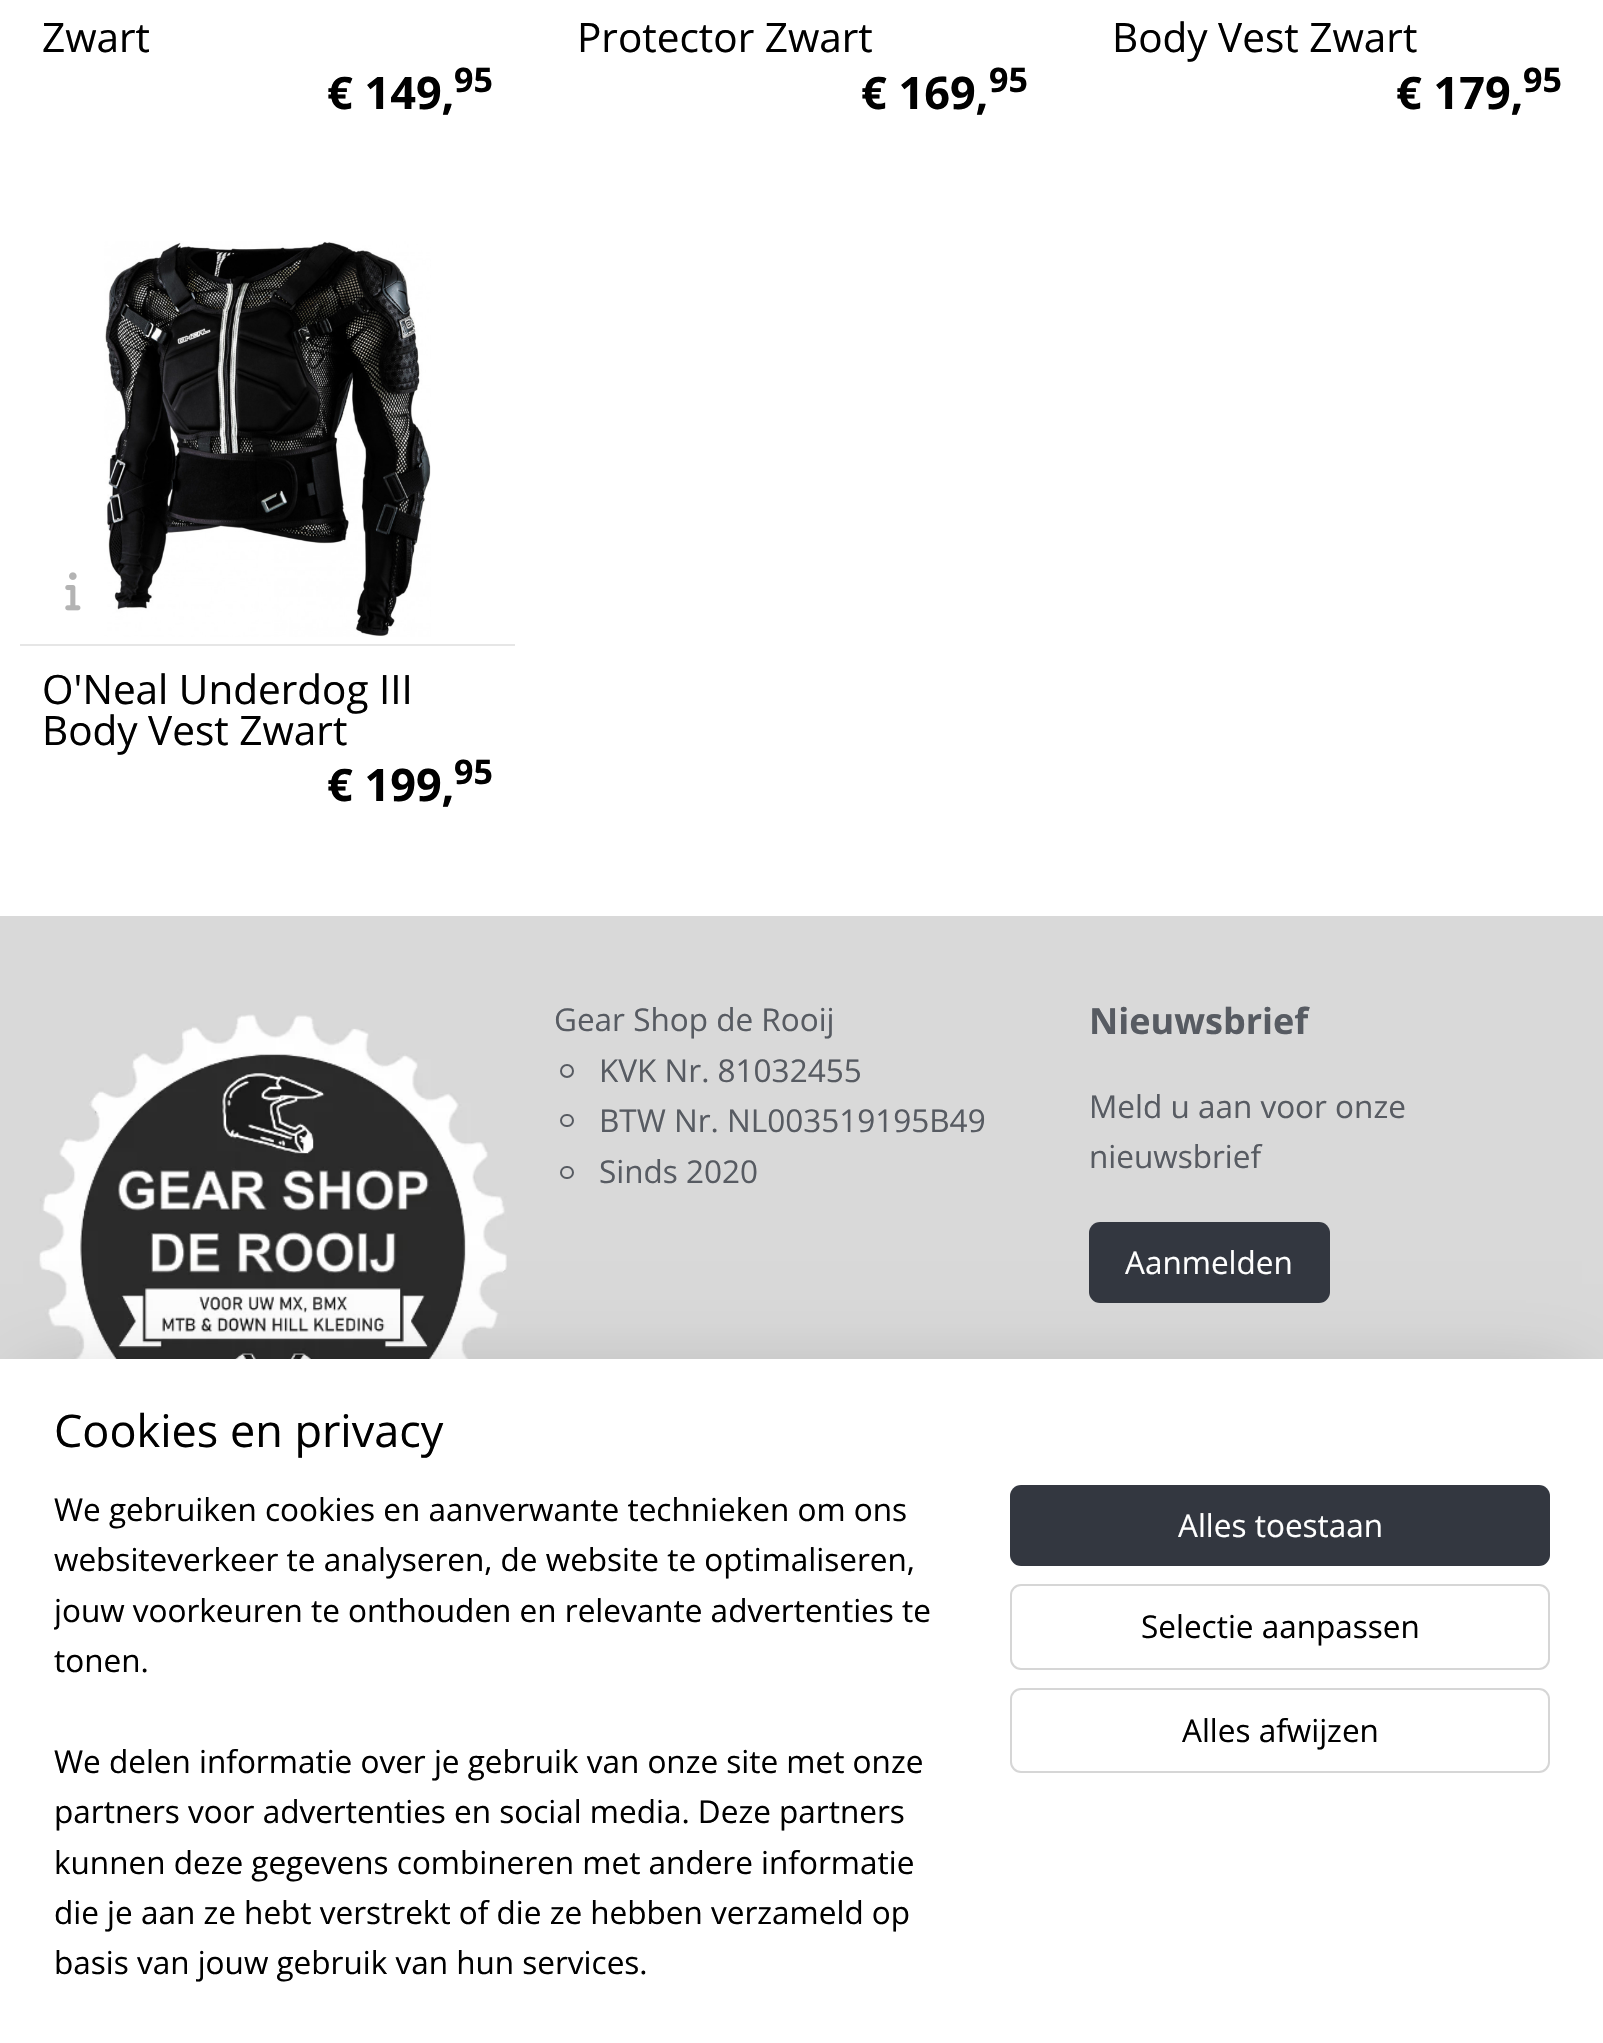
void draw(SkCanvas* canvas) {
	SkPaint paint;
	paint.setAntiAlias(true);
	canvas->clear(0xffffffff);
	SkFont f1(fontMgr->matchFamilyStyle("Open Sans", SkFontStyle::Normal()), 40.5);
	f1.setSubpixel(true);
	paint.setColor(0xff000000);
	canvas->drawString("Zwart", 42, 52, f1, paint);
	SkFont f2(fontMgr->matchFamilyStyle("Open Sans", SkFontStyle::Bold()), 45);
	f2.setSubpixel(true);
	canvas->drawString("€ 149,", 327, 109, f2, paint);
	SkFont f3(fontMgr->matchFamilyStyle("Open Sans", SkFontStyle::Bold()), 34);
	f3.setSubpixel(true);
	canvas->drawString("95", 454, 92, f3, paint);
	canvas->drawString("Protector Zwart", 577, 52, f1, paint);
	canvas->drawString("€ 169,", 861, 109, f2, paint);
	canvas->drawString("95", 989, 92, f3, paint);
	canvas->drawString("Body Vest Zwart", 1112, 52, f1, paint);
	canvas->drawString("€ 179,", 1396, 109, f2, paint);
	canvas->drawString("95", 1523, 92, f3, paint);
	canvas->drawImageRect(SkImages::DeferredFromEncodedData(SkData::MakeFromFileName("img1.png")), SkRect::MakeXYWH(104, 241, 327, 396), SkSamplingOptions());
	paint.setColor(0xffe6e6e6);
	canvas->drawRect(SkRect::MakeXYWH(20, 644, 495, 2), paint);
	canvas->drawImageRect(SkImages::DeferredFromEncodedData(SkData::MakeFromFileName("img2.png")), SkRect::MakeXYWH(65, 572, 16, 39), SkSamplingOptions());
	paint.setColor(0xff000000);
	canvas->drawString("O'Neal Underdog III", 42, 704, f1, paint);
	canvas->drawString("Body Vest Zwart", 42, 745, f1, paint);
	canvas->drawString("€ 199,", 327, 801, f2, paint);
	canvas->drawString("95", 454, 784, f3, paint);
	paint.setColor(0xffd9d9d9);
	canvas->drawRect(SkRect::MakeXYWH(0, 916, 1603, 443), paint);
	canvas->drawImageRect(SkImages::DeferredFromEncodedData(SkData::MakeFromFileName("img3.png")), SkRect::MakeXYWH(39, 1014, 468, 345), SkSamplingOptions());
	SkFont f4(fontMgr->matchFamilyStyle("Open Sans", SkFontStyle::Normal()), 31.5);
	f4.setSubpixel(true);
	paint.setColor(0xff575b62);
	canvas->drawString("Gear Shop de Rooij", 554, 1031, f4, paint);
	paint.setStroke(true);
	paint.setStrokeWidth(2);
	canvas->drawCircle(567, 1071, 6, paint);
	paint.setStroke(false);
	canvas->drawString("KVK Nr. 81032455", 599, 1082, f4, paint);
	paint.setStroke(true);
	canvas->drawRoundRect(SkRect::MakeXYWH(561, 1115, 12, 11), 5.5, 5.5, paint);
	paint.setStroke(false);
	canvas->drawString("BTW Nr. NL003519195B49", 599, 1132, f4, paint);
	paint.setStroke(true);
	canvas->drawRoundRect(SkRect::MakeXYWH(561, 1167, 12, 11), 5.5, 5.5, paint);
	paint.setStroke(false);
	canvas->drawString("Sinds 2020", 599, 1183, f4, paint);
	SkFont f5(fontMgr->matchFamilyStyle("Open Sans", SkFontStyle::Bold()), 36);
	f5.setSubpixel(true);
	canvas->drawString("Nieuwsbrief", 1089, 1034, f5, paint);
	canvas->drawString("Meld u aan voor onze", 1089, 1118, f4, paint);
	canvas->drawString("nieuwsbrief", 1089, 1168, f4, paint);
	paint.setColor(0xff333740);
	canvas->drawRoundRect(SkRect::MakeXYWH(1089, 1222, 241, 81), 11, 11, paint);
	paint.setColor(0xffffffff);
	canvas->drawString("Aanmelden", 1125, 1274, f4, paint);
	paint.setColor(0x33000000);
	paint.setMaskFilter(SkMaskFilter::MakeBlur(kNormal_SkBlurStyle, 40.5));
	canvas->drawRect(SkRect::MakeXYWH(23, 1382, 1559, 639), paint);
	paint.setMaskFilter(nullptr);
	paint.setColor(0xffffffff);
	canvas->drawRect(SkRect::MakeXYWH(0, 1359, 1603, 684), paint);
	SkFont f6(fontMgr->matchFamilyStyle("Open Sans", SkFontStyle::Normal()), 45);
	f6.setSubpixel(true);
	paint.setColor(0xff000000);
	canvas->drawString("Cookies en privacy", 54, 1447, f6, paint);
	canvas->drawString("We gebruiken cookies en aanverwante technieken om ons", 54, 1521, f4, paint);
	canvas->drawString("websiteverkeer te analyseren, de website te optimaliseren,", 54, 1571, f4, paint);
	canvas->save();
	canvas->clipRect(SkRect::MakeXYWH(54, 1485, 902, 558));
	canvas->drawString("jouw voorkeuren te onthouden en relevante advertenties te", 54, 1622, f4, paint);
	canvas->restore();
	canvas->drawString("tonen.", 54, 1672, f4, paint);
	canvas->drawString("We delen informatie over je gebruik van onze site met onze", 54, 1773, f4, paint);
	canvas->drawString("partners voor advertenties en social media. Deze partners", 54, 1823, f4, paint);
	canvas->drawString("kunnen deze gegevens combineren met andere informatie", 54, 1874, f4, paint);
	canvas->drawString("die je aan ze hebt verstrekt of die ze hebben verzameld op", 54, 1924, f4, paint);
	canvas->drawString("basis van jouw gebruik van hun services.", 54, 1974, f4, paint);
	paint.setColor(0xff333740);
	canvas->drawRoundRect(SkRect::MakeXYWH(1010, 1485, 540, 81), 11, 11, paint);
	paint.setColor(0xffffffff);
	canvas->drawString("Alles toestaan", 1178, 1537, f4, paint);
	paint.setStroke(true);
	paint.setColor(0xffd6d6d6);
	canvas->drawRoundRect(SkRect::MakeXYWH(1011, 1585, 538, 84), 10, 10, paint);
	paint.setStroke(false);
	paint.setColor(0xff000000);
	canvas->drawString("Selectie aanpassen", 1141, 1638, f4, paint);
	paint.setStroke(true);
	paint.setColor(0xffd6d6d6);
	canvas->drawRoundRect(SkRect::MakeXYWH(1011, 1689, 538, 83), 10, 10, paint);
	paint.setStroke(false);
	paint.setColor(0xff000000);
	canvas->drawString("Alles afwijzen", 1182, 1742, f4, paint);
}
